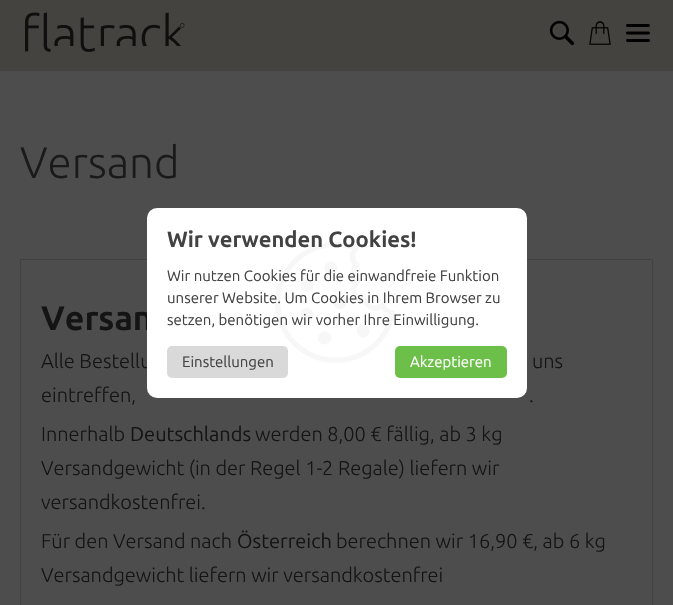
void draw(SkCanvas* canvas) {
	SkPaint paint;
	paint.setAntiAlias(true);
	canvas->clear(0xff4d4d4d);
	paint.setColor(0xff44433f);
	canvas->drawRect(SkRect::MakeXYWH(0, 0, 673, 70), paint);
	paint.setColor(0xff424242);
	canvas->drawRect(SkRect::MakeXYWH(0, 70, 673, 1), paint);
	canvas->drawImageRect(SkImages::DeferredFromEncodedData(SkData::MakeFromFileName("img1.png")), SkRect::MakeXYWH(25, 12, 160, 40), SkSamplingOptions());
	canvas->drawImageRect(SkImages::DeferredFromEncodedData(SkData::MakeFromFileName("img2.png")), SkRect::MakeXYWH(549, 20, 26, 26), SkSamplingOptions());
	canvas->drawImageRect(SkImages::DeferredFromEncodedData(SkData::MakeFromFileName("img3.png")), SkRect::MakeXYWH(589, 21, 22, 24), SkSamplingOptions());
	canvas->drawImageRect(SkImages::DeferredFromEncodedData(SkData::MakeFromFileName("img4.png")), SkRect::MakeXYWH(626, 24, 24, 18), SkSamplingOptions());
	SkFont f1(fontMgr->matchFamilyStyle("Ubuntu", SkFontStyle(300, SkFontStyle::kNormal_Width, SkFontStyle::kUpright_Slant)), 44);
	f1.setSubpixel(true);
	paint.setColor(0xff1a1a1a);
	canvas->drawString("Versand", 20, 178, f1, paint);
	paint.setStroke(true);
	paint.setStrokeWidth(1);
	paint.setColor(0xff424242);
	canvas->drawRect(SkRect::MakeXYWH(20.5, 259.5, 632, 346), paint);
	SkFont f2(fontMgr->matchFamilyStyle("Ubuntu", SkFontStyle::Bold()), 34);
	f2.setSubpixel(true);
	paint.setStroke(false);
	paint.setColor(0xff141414);
	canvas->drawString("Versan", 41, 330, f2, paint);
	SkFont f3(fontMgr->matchFamilyStyle("Ubuntu", SkFontStyle(300, SkFontStyle::kNormal_Width, SkFontStyle::kUpright_Slant)), 20);
	f3.setSubpixel(true);
	canvas->drawString("Alle Bestellu", 41, 368, f3, paint);
	canvas->drawString("uns", 532, 368, f3, paint);
	canvas->drawString("eintreffen,", 41, 402, f3, paint);
	canvas->drawString(".", 529, 402, f3, paint);
	canvas->drawString("Innerhalb", 41, 441, f3, paint);
	SkFont f4(fontMgr->matchFamilyStyle("Ubuntu", SkFontStyle::Normal()), 20);
	f4.setSubpixel(true);
	canvas->drawString("Deutschlands", 130, 441, f4, paint);
	canvas->drawString("werden 8,00 € fällig, ab 3 kg", 255, 441, f3, paint);
	canvas->drawString("Versandgewicht (in der Regel 1-2 Regale) liefern wir", 41, 475, f3, paint);
	canvas->drawString("versandkostenfrei.", 41, 509, f3, paint);
	canvas->drawString("Für den Versand nach", 41, 548, f3, paint);
	canvas->drawString("Österreich", 237, 548, f4, paint);
	canvas->drawString("berechnen wir 16,90 €, ab 6 kg", 336, 548, f3, paint);
	canvas->drawString("Versandgewicht liefern wir versandkostenfrei", 41, 582, f3, paint);
	paint.setColor(0xffffffff);
	canvas->drawRoundRect(SkRect::MakeXYWH(147, 208, 380, 190), 10, 10, paint);
	canvas->drawImageRect(SkImages::DeferredFromEncodedData(SkData::MakeFromFileName("img5.png")), SkRect::MakeXYWH(275, 242, 120, 121), SkSamplingOptions());
	SkFont f5(fontMgr->matchFamilyStyle("Ubuntu", SkFontStyle::Bold()), 22);
	f5.setSubpixel(true);
	paint.setColor(0xff424242);
	canvas->drawString("Wir verwenden Cookies!", 167, 247, f5, paint);
	SkFont f6(fontMgr->matchFamilyStyle("Ubuntu", SkFontStyle::Normal()), 15);
	f6.setSubpixel(true);
	canvas->drawString("Wir nutzen Cookies für die einwandfreie Funktion", 167, 281, f6, paint);
	canvas->drawString("unserer Website. Um Cookies in Ihrem Browser zu", 167, 303, f6, paint);
	canvas->drawString("setzen, benötigen wir vorher Ihre Einwilligung.", 167, 325, f6, paint);
	paint.setColor(0xffd9d9d9);
	canvas->drawRoundRect(SkRect::MakeXYWH(167, 346, 121, 32), 5, 5, paint);
	paint.setColor(0xff424242);
	canvas->drawString("Einstellungen", 182, 367, f6, paint);
	paint.setColor(0xff6cc04a);
	canvas->drawRoundRect(SkRect::MakeXYWH(395, 346, 112, 32), 5, 5, paint);
	paint.setColor(0xffffffff);
	canvas->drawString("Akzeptieren", 410, 367, f6, paint);
}
